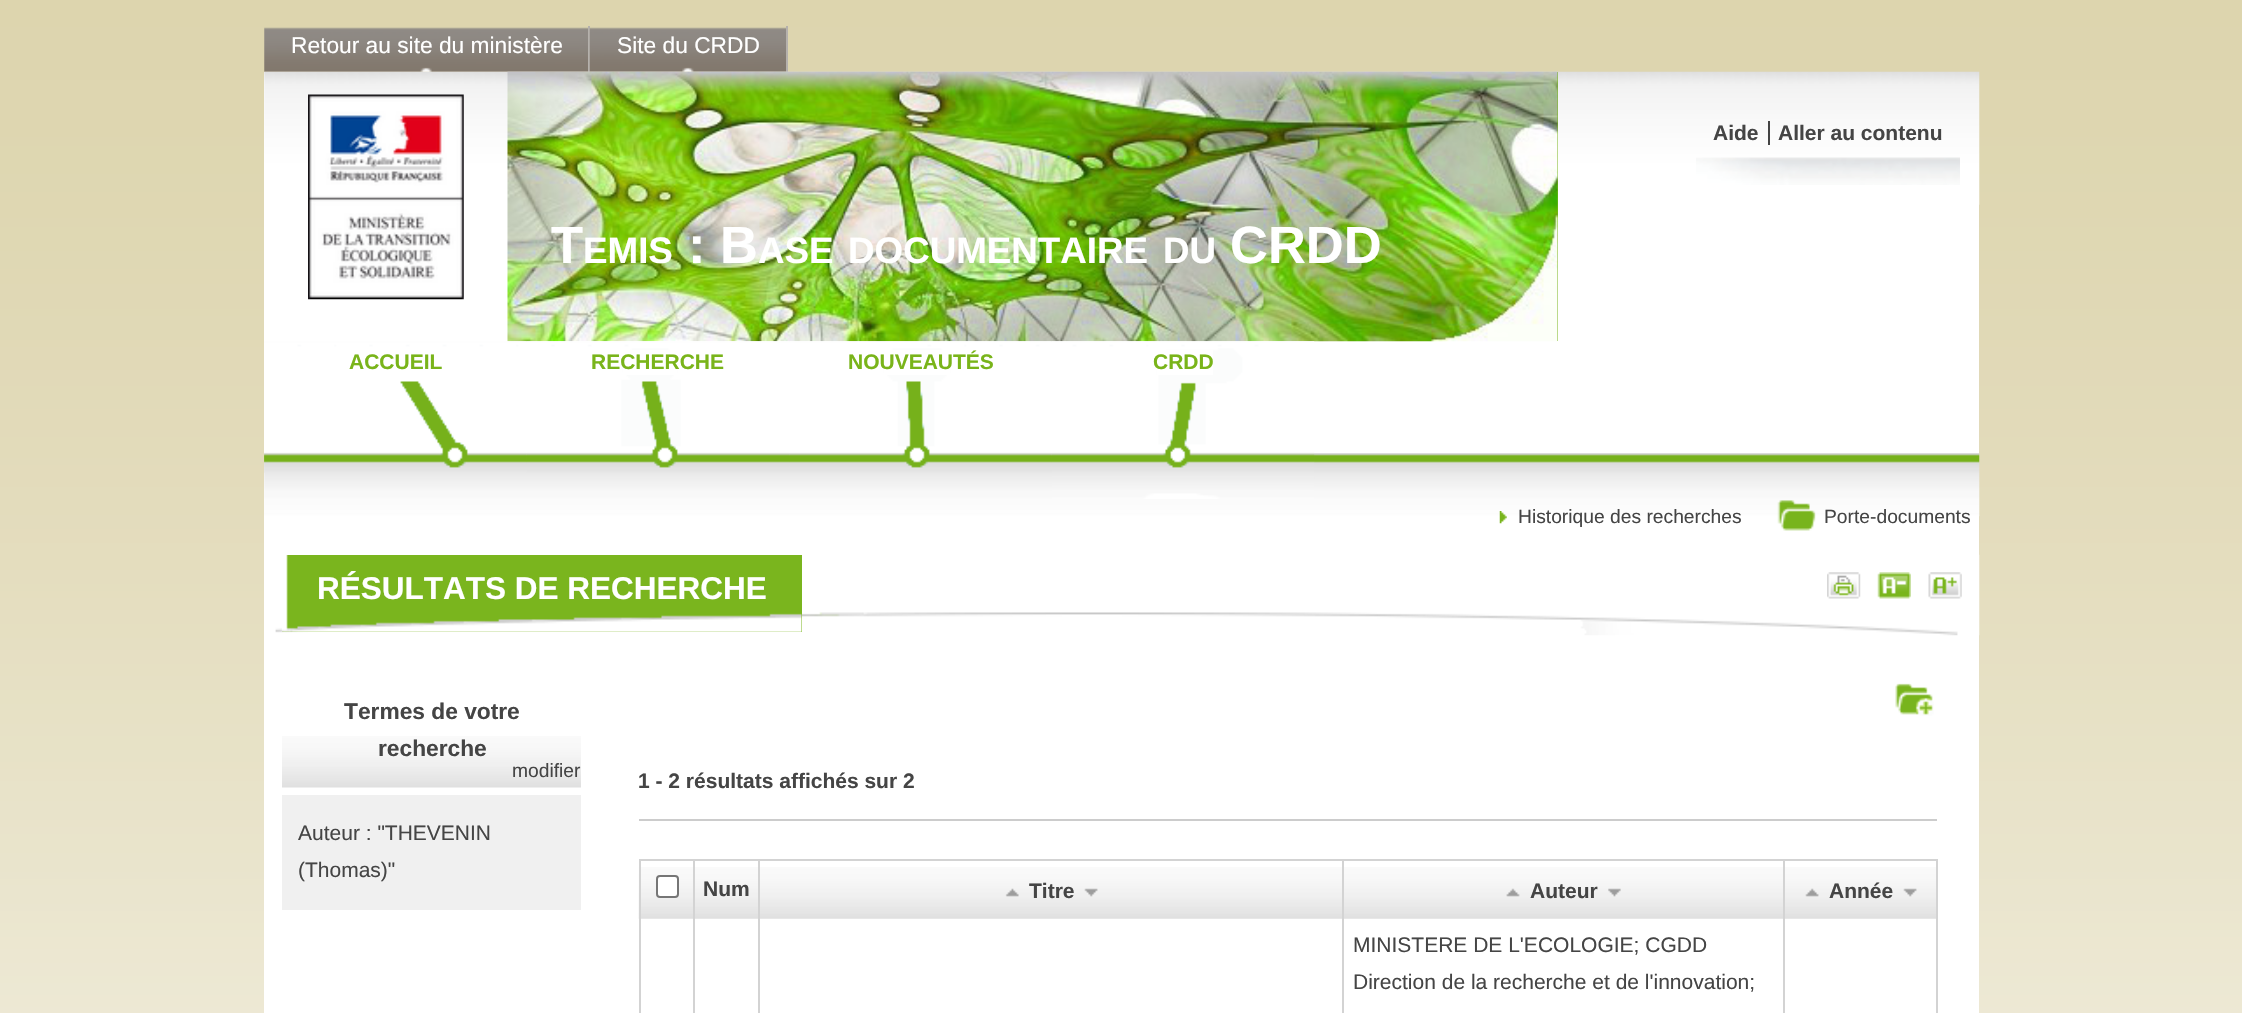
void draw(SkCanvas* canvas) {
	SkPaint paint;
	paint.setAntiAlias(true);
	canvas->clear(0xffffffff);
	canvas->drawImageRect(SkImages::DeferredFromEncodedData(SkData::MakeFromFileName("img1.png")), SkRect::MakeXYWH(0, 0, 2242, 1013), SkSamplingOptions());
	canvas->drawImageRect(SkImages::DeferredFromEncodedData(SkData::MakeFromFileName("img2.png")), SkRect::MakeXYWH(264, 27, 324, 45), SkSamplingOptions());
	paint.setColor(0xffb5b1ac);
	canvas->drawRect(SkRect::MakeXYWH(588, 26, 2, 46), paint);
	SkFont f1(fontMgr->matchFamilyStyle("Liberation Sans", SkFontStyle::Normal()), 22.75);
	f1.setSubpixel(true);
	paint.setColor(0xffffffff);
	canvas->drawString("Retour au site du ministère", 291, 53, f1, paint);
	canvas->drawImageRect(SkImages::DeferredFromEncodedData(SkData::MakeFromFileName("img3.png")), SkRect::MakeXYWH(589, 27, 197, 45), SkSamplingOptions());
	paint.setColor(0xffb5b1ac);
	canvas->drawRect(SkRect::MakeXYWH(786, 26, 2, 46), paint);
	paint.setColor(0xffffffff);
	canvas->drawString("Site du CRDD", 617, 53, f1, paint);
	canvas->drawRect(SkRect::MakeXYWH(264, 72, 1715, 941), paint);
	canvas->drawImageRect(SkImages::DeferredFromEncodedData(SkData::MakeFromFileName("img4.png")), SkRect::MakeXYWH(264, 71, 1716, 134), SkSamplingOptions());
	canvas->drawImageRect(SkImages::DeferredFromEncodedData(SkData::MakeFromFileName("img5.png")), SkRect::MakeXYWH(308, 94, 156, 206), SkSamplingOptions());
	canvas->drawImageRect(SkImages::DeferredFromEncodedData(SkData::MakeFromFileName("img6.png")), SkRect::MakeXYWH(1696, 157, 264, 28), SkSamplingOptions());
	SkFont f2(fontMgr->matchFamilyStyle("Liberation Sans", SkFontStyle::Bold()), 21);
	f2.setSubpixel(true);
	paint.setColor(0xff454545);
	canvas->drawString("Aide", 1713, 140, f2, paint);
	canvas->drawString("Aller au contenu", 1778, 140, f2, paint);
	paint.setColor(0xff444444);
	canvas->drawRect(SkRect::MakeXYWH(1768, 121, 2, 24), paint);
	paint.setColor(0xff7ab51e);
	canvas->drawRect(SkRect::MakeXYWH(1557, 72, 1, 269), paint);
	canvas->drawImageRect(SkImages::DeferredFromEncodedData(SkData::MakeFromFileName("img7.png")), SkRect::MakeXYWH(507, 71, 1051, 271), SkSamplingOptions());
	SkFont f3(fontMgr->matchFamilyStyle("Liberation Sans", SkFontStyle::Bold()), 52.5);
	f3.setSubpixel(true);
	paint.setColor(0xffffffff);
	canvas->drawString("T", 551, 263, f3, paint);
	SkFont f4(fontMgr->matchFamilyStyle("Liberation Sans", SkFontStyle::Bold()), 36.75);
	f4.setSubpixel(true);
	canvas->drawString("EMIS", 583, 263, f4, paint);
	canvas->drawString(": B", 688, 263, f3, paint);
	canvas->drawString("ASE", 758, 263, f4, paint);
	canvas->drawString("DOCUMENTAIRE", 848, 263, f4, paint);
	canvas->drawString("DU", 1163, 263, f4, paint);
	canvas->drawString("CRDD", 1230, 263, f3, paint);
	canvas->drawImageRect(SkImages::DeferredFromEncodedData(SkData::MakeFromFileName("img8.png")), SkRect::MakeXYWH(264, 453, 1716, 64), SkSamplingOptions());
	canvas->drawImageRect(SkImages::DeferredFromEncodedData(SkData::MakeFromFileName("img9.png")), SkRect::MakeXYWH(264, 341, 263, 132), SkSamplingOptions());
	paint.setColor(0xff79b41a);
	canvas->drawString("ACCUEIL", 349, 369, f2, paint);
	canvas->drawImageRect(SkImages::DeferredFromEncodedData(SkData::MakeFromFileName("img10.png")), SkRect::MakeXYWH(526, 341, 264, 127), SkSamplingOptions());
	paint.setColor(0xffffffff);
	canvas->drawRect(SkRect::MakeXYWH(623, 350, 54, 25), paint);
	paint.setColor(0xff79b41a);
	canvas->drawString("RECHERCHE", 591, 369, f2, paint);
	canvas->drawImageRect(SkImages::DeferredFromEncodedData(SkData::MakeFromFileName("img11.png")), SkRect::MakeXYWH(789, 341, 263, 127), SkSamplingOptions());
	paint.setColor(0xffffffff);
	canvas->drawRect(SkRect::MakeXYWH(884, 350, 66, 25), paint);
	paint.setColor(0xff79b41a);
	canvas->drawString("NOUVEAUTÉS", 848, 369, f2, paint);
	canvas->drawImageRect(SkImages::DeferredFromEncodedData(SkData::MakeFromFileName("img12.png")), SkRect::MakeXYWH(1052, 341, 263, 158), SkSamplingOptions());
	paint.setColor(0xffffffff);
	canvas->drawRect(SkRect::MakeXYWH(1157, 350, 56, 25), paint);
	paint.setColor(0xff79b41a);
	canvas->drawString("CRDD", 1153, 369, f2, paint);
	canvas->drawImageRect(SkImages::DeferredFromEncodedData(SkData::MakeFromFileName("img13.png")), SkRect::MakeXYWH(1499, 511, 8, 13), SkSamplingOptions());
	SkFont f5(fontMgr->matchFamilyStyle("Liberation Sans", SkFontStyle::Normal()), 19.25);
	f5.setSubpixel(true);
	paint.setColor(0xff454545);
	canvas->drawString("Historique des recherches", 1518, 523, f5, paint);
	canvas->drawImageRect(SkImages::DeferredFromEncodedData(SkData::MakeFromFileName("img14.png")), SkRect::MakeXYWH(1777, 500, 39, 31), SkSamplingOptions());
	canvas->drawString("Porte-documents", 1824, 523, f5, paint);
	canvas->drawImageRect(SkImages::DeferredFromEncodedData(SkData::MakeFromFileName("img15.png")), SkRect::MakeXYWH(275, 554, 1705, 82), SkSamplingOptions());
	paint.setColor(0xff7ab51e);
	canvas->drawRect(SkRect::MakeXYWH(282, 555, 520, 77), paint);
	canvas->drawImageRect(SkImages::DeferredFromEncodedData(SkData::MakeFromFileName("img16.png")), SkRect::MakeXYWH(281, 555, 521, 77), SkSamplingOptions());
	SkFont f6(fontMgr->matchFamilyStyle("Liberation Sans", SkFontStyle::Bold()), 31.5);
	f6.setSubpixel(true);
	paint.setColor(0xffffffff);
	canvas->drawString("RÉSULTATS DE RECHERCHE", 317, 599, f6, paint);
	canvas->drawImageRect(SkImages::DeferredFromEncodedData(SkData::MakeFromFileName("img17.png")), SkRect::MakeXYWH(1827, 572, 34, 27), SkSamplingOptions());
	canvas->drawImageRect(SkImages::DeferredFromEncodedData(SkData::MakeFromFileName("img18.png")), SkRect::MakeXYWH(1877, 572, 34, 27), SkSamplingOptions());
	canvas->drawImageRect(SkImages::DeferredFromEncodedData(SkData::MakeFromFileName("img19.png")), SkRect::MakeXYWH(1928, 572, 34, 27), SkSamplingOptions());
	canvas->drawImageRect(SkImages::DeferredFromEncodedData(SkData::MakeFromFileName("img20.png")), SkRect::MakeXYWH(282, 736, 299, 52), SkSamplingOptions());
	SkFont f7(fontMgr->matchFamilyStyle("Liberation Sans", SkFontStyle::Bold()), 22.75);
	f7.setSubpixel(true);
	paint.setColor(0xff454545);
	canvas->drawString("Termes de votre", 344, 719, f7, paint);
	canvas->drawString("recherche", 378, 756, f7, paint);
	canvas->drawString("modifier", 512, 777, f5, paint);
	paint.setColor(0xfff0f0f0);
	canvas->drawRect(SkRect::MakeXYWH(282, 795, 299, 115), paint);
	SkFont f8(fontMgr->matchFamilyStyle("Liberation Sans", SkFontStyle::Normal()), 21);
	f8.setSubpixel(true);
	paint.setColor(0xff454545);
	canvas->drawString("Auteur : \"THEVENIN", 298, 840, f8, paint);
	canvas->drawString("(Thomas)\"", 298, 877, f8, paint);
	canvas->drawImageRect(SkImages::DeferredFromEncodedData(SkData::MakeFromFileName("img21.png")), SkRect::MakeXYWH(1895, 683, 39, 33), SkSamplingOptions());
	canvas->drawString("1 - 2 résultats affichés sur 2", 638, 788, f2, paint);
	paint.setColor(0xffcccccc);
	canvas->drawRect(SkRect::MakeXYWH(639, 819, 1298, 2), paint);
	paint.setColor(0xffd3d3d3);
	canvas->drawRect(SkRect::MakeXYWH(639, 859, 1298, 2), paint);
	canvas->drawRect(SkRect::MakeXYWH(1936, 859, 2, 154), paint);
	canvas->drawImageRect(SkImages::DeferredFromEncodedData(SkData::MakeFromFileName("img22.png")), SkRect::MakeXYWH(638, 867, 55, 52), SkSamplingOptions());
	canvas->drawRect(SkRect::MakeXYWH(639, 859, 2, 154), paint);
	paint.setColor(0xffffffff);
	canvas->drawRoundRect(SkRect::MakeXYWH(657, 876, 21, 21), 3, 3, paint);
	paint.setStroke(true);
	paint.setStrokeWidth(2);
	paint.setColor(0xff767676);
	canvas->drawRoundRect(SkRect::MakeXYWH(657, 876, 21, 21), 3, 3, paint);
	canvas->drawImageRect(SkImages::DeferredFromEncodedData(SkData::MakeFromFileName("img23.png")), SkRect::MakeXYWH(695, 867, 63, 52), SkSamplingOptions());
	paint.setStroke(false);
	paint.setColor(0xff454545);
	canvas->drawString("Num", 703, 896, f2, paint);
	canvas->drawImageRect(SkImages::DeferredFromEncodedData(SkData::MakeFromFileName("img24.png")), SkRect::MakeXYWH(760, 867, 582, 52), SkSamplingOptions());
	canvas->drawImageRect(SkImages::DeferredFromEncodedData(SkData::MakeFromFileName("img25.png")), SkRect::MakeXYWH(1005, 888, 14, 9), SkSamplingOptions());
	canvas->drawString("Titre", 1029, 898, f2, paint);
	canvas->drawImageRect(SkImages::DeferredFromEncodedData(SkData::MakeFromFileName("img26.png")), SkRect::MakeXYWH(1084, 888, 14, 9), SkSamplingOptions());
	canvas->drawImageRect(SkImages::DeferredFromEncodedData(SkData::MakeFromFileName("img27.png")), SkRect::MakeXYWH(1344, 867, 439, 52), SkSamplingOptions());
	canvas->drawImageRect(SkImages::DeferredFromEncodedData(SkData::MakeFromFileName("img28.png")), SkRect::MakeXYWH(1506, 888, 14, 9), SkSamplingOptions());
	canvas->drawString("Auteur", 1530, 898, f2, paint);
	canvas->drawImageRect(SkImages::DeferredFromEncodedData(SkData::MakeFromFileName("img29.png")), SkRect::MakeXYWH(1608, 888, 13, 9), SkSamplingOptions());
	canvas->drawImageRect(SkImages::DeferredFromEncodedData(SkData::MakeFromFileName("img30.png")), SkRect::MakeXYWH(1785, 867, 151, 52), SkSamplingOptions());
	canvas->drawImageRect(SkImages::DeferredFromEncodedData(SkData::MakeFromFileName("img31.png")), SkRect::MakeXYWH(1805, 888, 14, 9), SkSamplingOptions());
	canvas->drawString("Année", 1829, 898, f2, paint);
	canvas->drawImageRect(SkImages::DeferredFromEncodedData(SkData::MakeFromFileName("img26.png")), SkRect::MakeXYWH(1903, 888, 14, 9), SkSamplingOptions());
	paint.setColor(0xffd3d3d3);
	canvas->drawRect(SkRect::MakeXYWH(693, 859, 2, 154), paint);
	canvas->drawRect(SkRect::MakeXYWH(758, 859, 2, 154), paint);
	canvas->drawRect(SkRect::MakeXYWH(1342, 859, 2, 154), paint);
	paint.setColor(0xff454545);
	canvas->drawString("MINISTERE DE L'ECOLOGIE; CGDD", 1353, 952, f8, paint);
	canvas->drawString("Direction de la recherche et de l'innovation;", 1353, 989, f8, paint);
	paint.setColor(0xffd3d3d3);
	canvas->drawRect(SkRect::MakeXYWH(1783, 859, 2, 154), paint);
}
